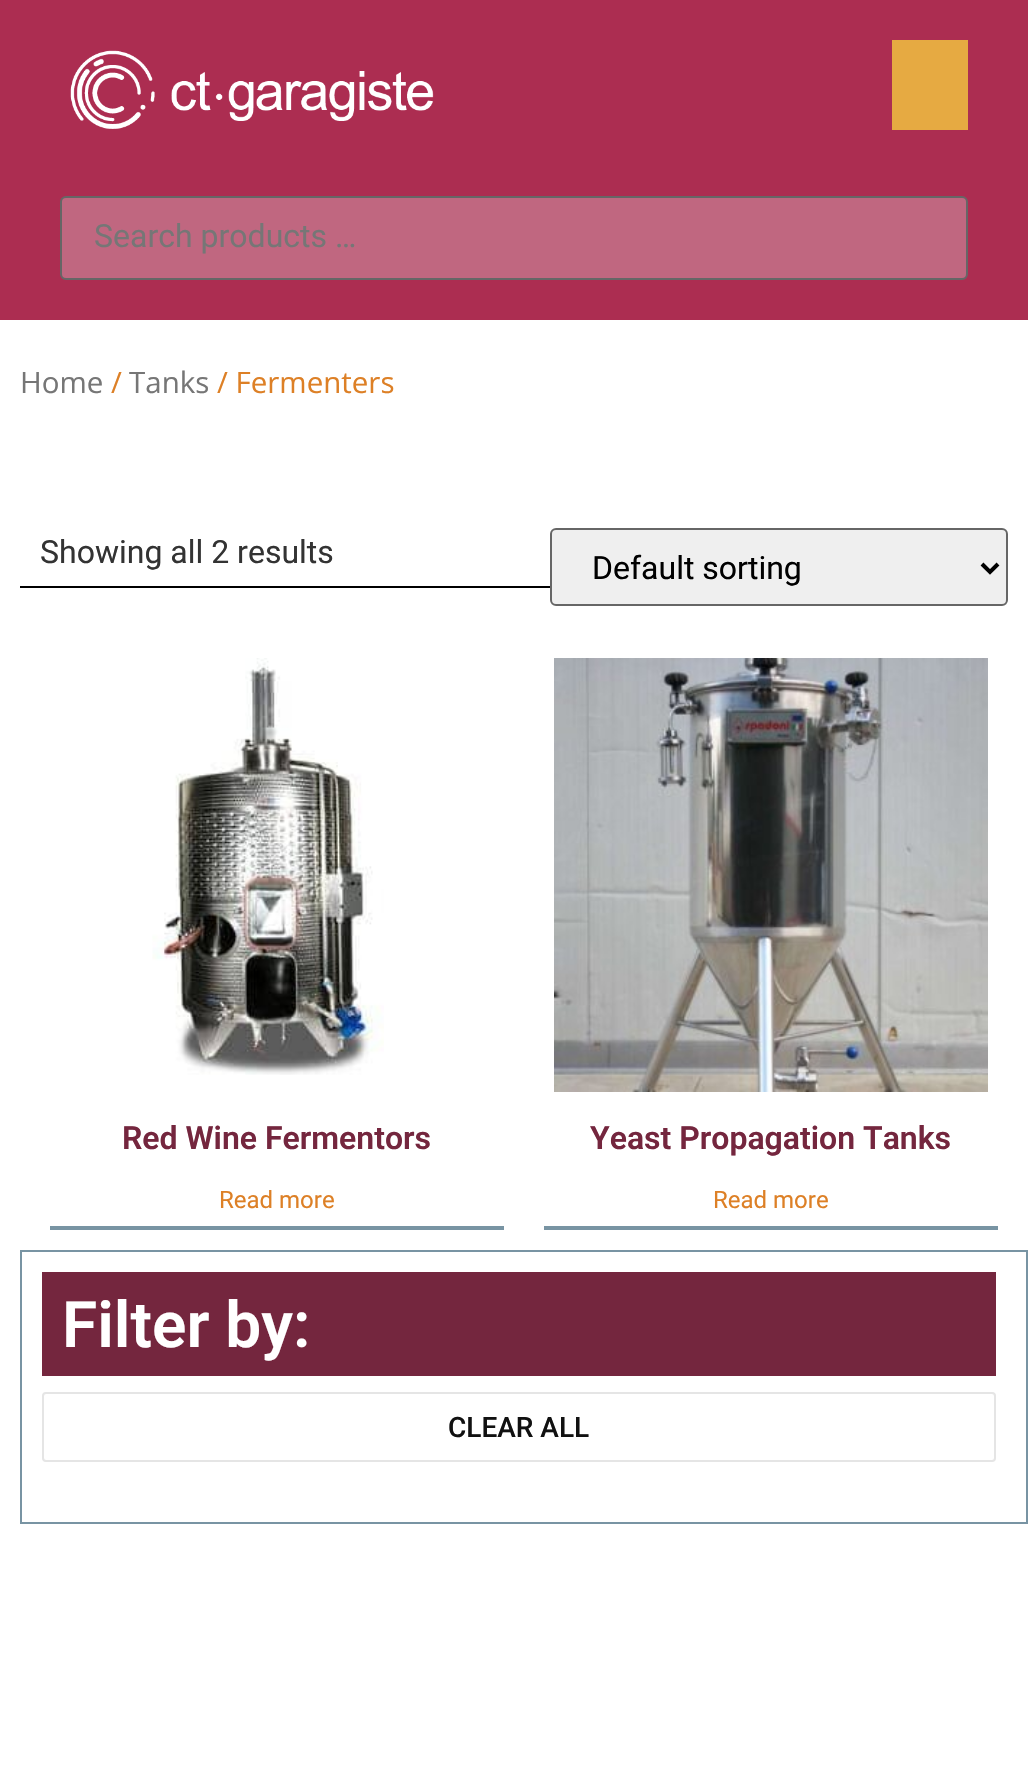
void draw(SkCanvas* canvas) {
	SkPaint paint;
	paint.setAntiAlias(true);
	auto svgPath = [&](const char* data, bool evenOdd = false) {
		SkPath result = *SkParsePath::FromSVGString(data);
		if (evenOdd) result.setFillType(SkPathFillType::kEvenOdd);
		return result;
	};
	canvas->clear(0xffffffff);
	paint.setColor(0xffac2d51);
	canvas->drawRect(SkRect::MakeXYWH(0, 0, 1028, 320), paint);
	canvas->drawImageRect(SkImages::DeferredFromEncodedData(SkData::MakeFromFileName("img1.png")), SkRect::MakeXYWH(70, 50, 364, 79), SkSamplingOptions());
	paint.setColor(0xffe6aa42);
	canvas->drawRect(SkRect::MakeXYWH(892, 40, 76, 90), paint);
	paint.setColor(0xffc06780);
	canvas->drawRoundRect(SkRect::MakeXYWH(61, 197, 906, 82), 5, 5, paint);
	paint.setStroke(true);
	paint.setStrokeWidth(2);
	paint.setColor(0xff666666);
	canvas->drawRoundRect(SkRect::MakeXYWH(61, 197, 906, 82), 5, 5, paint);
	SkFont f1(fontMgr->matchFamilyStyle("Roboto", SkFontStyle::Normal()), 32);
	f1.setSubpixel(true);
	paint.setStroke(false);
	paint.setColor(0xff767676);
	canvas->drawString("Search products …", 94, 247, f1, paint);
	SkFont f2(fontMgr->matchFamilyStyle("Open Sans", SkFontStyle::Normal()), 29.5);
	f2.setSubpixel(true);
	canvas->drawString("Home", 20, 393, f2, paint);
	paint.setColor(0xffdd8026);
	canvas->drawString("/", 111, 393, f2, paint);
	paint.setColor(0xff767676);
	canvas->drawString("Tanks", 129, 393, f2, paint);
	paint.setColor(0xffdd8026);
	canvas->drawString("/ Fermenters", 217, 393, f2, paint);
	paint.setColor(0xff333333);
	canvas->drawString("Showing all 2 results", 40, 563, f1, paint);
	paint.setColor(0xffefefef);
	canvas->drawRoundRect(SkRect::MakeXYWH(551, 529, 456, 76), 5, 5, paint);
	paint.setStroke(true);
	paint.setColor(0xff666666);
	canvas->drawRoundRect(SkRect::MakeXYWH(551, 529, 456, 76), 5, 5, paint);
	paint.setStrokeWidth(4);
	paint.setColor(0xff000000);
	canvas->drawPath(svgPath("M982 564L990 572L998 564"), paint);
	paint.setStroke(false);
	canvas->drawString("Default sorting", 592, 579, f1, paint);
	paint.setColor(0xff7894a3);
	canvas->drawRect(SkRect::MakeXYWH(50, 1226, 454, 4), paint);
	canvas->drawImageRect(SkImages::DeferredFromEncodedData(SkData::MakeFromFileName("img2.png")), SkRect::MakeXYWH(152, 658, 232, 417), SkSamplingOptions());
	SkFont f3(fontMgr->matchFamilyStyle("Roboto", SkFontStyle(600, SkFontStyle::kNormal_Width, SkFontStyle::kUpright_Slant)), 32);
	f3.setSubpixel(true);
	paint.setColor(0xff74263e);
	canvas->drawString("Red Wine Fermentors", 122, 1149, f3, paint);
	SkFont f4(fontMgr->matchFamilyStyle("Roboto", SkFontStyle::Normal()), 24);
	f4.setSubpixel(true);
	paint.setColor(0xffdd8026);
	canvas->drawString("Read more", 219, 1208, f4, paint);
	paint.setColor(0xff7894a3);
	canvas->drawRect(SkRect::MakeXYWH(544, 1226, 454, 4), paint);
	canvas->drawImageRect(SkImages::DeferredFromEncodedData(SkData::MakeFromFileName("img3.png")), SkRect::MakeXYWH(554, 658, 434, 434), SkSamplingOptions());
	paint.setColor(0xff74263e);
	canvas->drawString("Yeast Propagation Tanks", 590, 1149, f3, paint);
	paint.setColor(0xffdd8026);
	canvas->drawString("Read more", 713, 1208, f4, paint);
	paint.setStroke(true);
	paint.setStrokeWidth(2);
	paint.setColor(0xff7894a3);
	canvas->drawRect(SkRect::MakeXYWH(21, 1251, 1006, 272), paint);
	paint.setStroke(false);
	paint.setColor(0xff74263e);
	canvas->drawRect(SkRect::MakeXYWH(42, 1272, 954, 104), paint);
	SkFont f5(fontMgr->matchFamilyStyle("Roboto", SkFontStyle(600, SkFontStyle::kNormal_Width, SkFontStyle::kUpright_Slant)), 64);
	f5.setSubpixel(true);
	paint.setColor(0xffffffff);
	canvas->drawString("Filter by:", 62, 1347, f5, paint);
	paint.setStroke(true);
	paint.setColor(0xffe5e5e5);
	canvas->drawRoundRect(SkRect::MakeXYWH(43, 1393, 952, 68), 3, 3, paint);
	SkFont f6(fontMgr->matchFamilyStyle("Roboto", SkFontStyle(500, SkFontStyle::kNormal_Width, SkFontStyle::kUpright_Slant)), 28);
	f6.setSubpixel(true);
	paint.setStroke(false);
	paint.setColor(0xff111111);
	canvas->drawString("CLEAR ALL", 448, 1437, f6, paint);
	paint.setColor(0xff000000);
	canvas->drawRect(SkRect::MakeXYWH(20, 586, 530, 2), paint);
}
